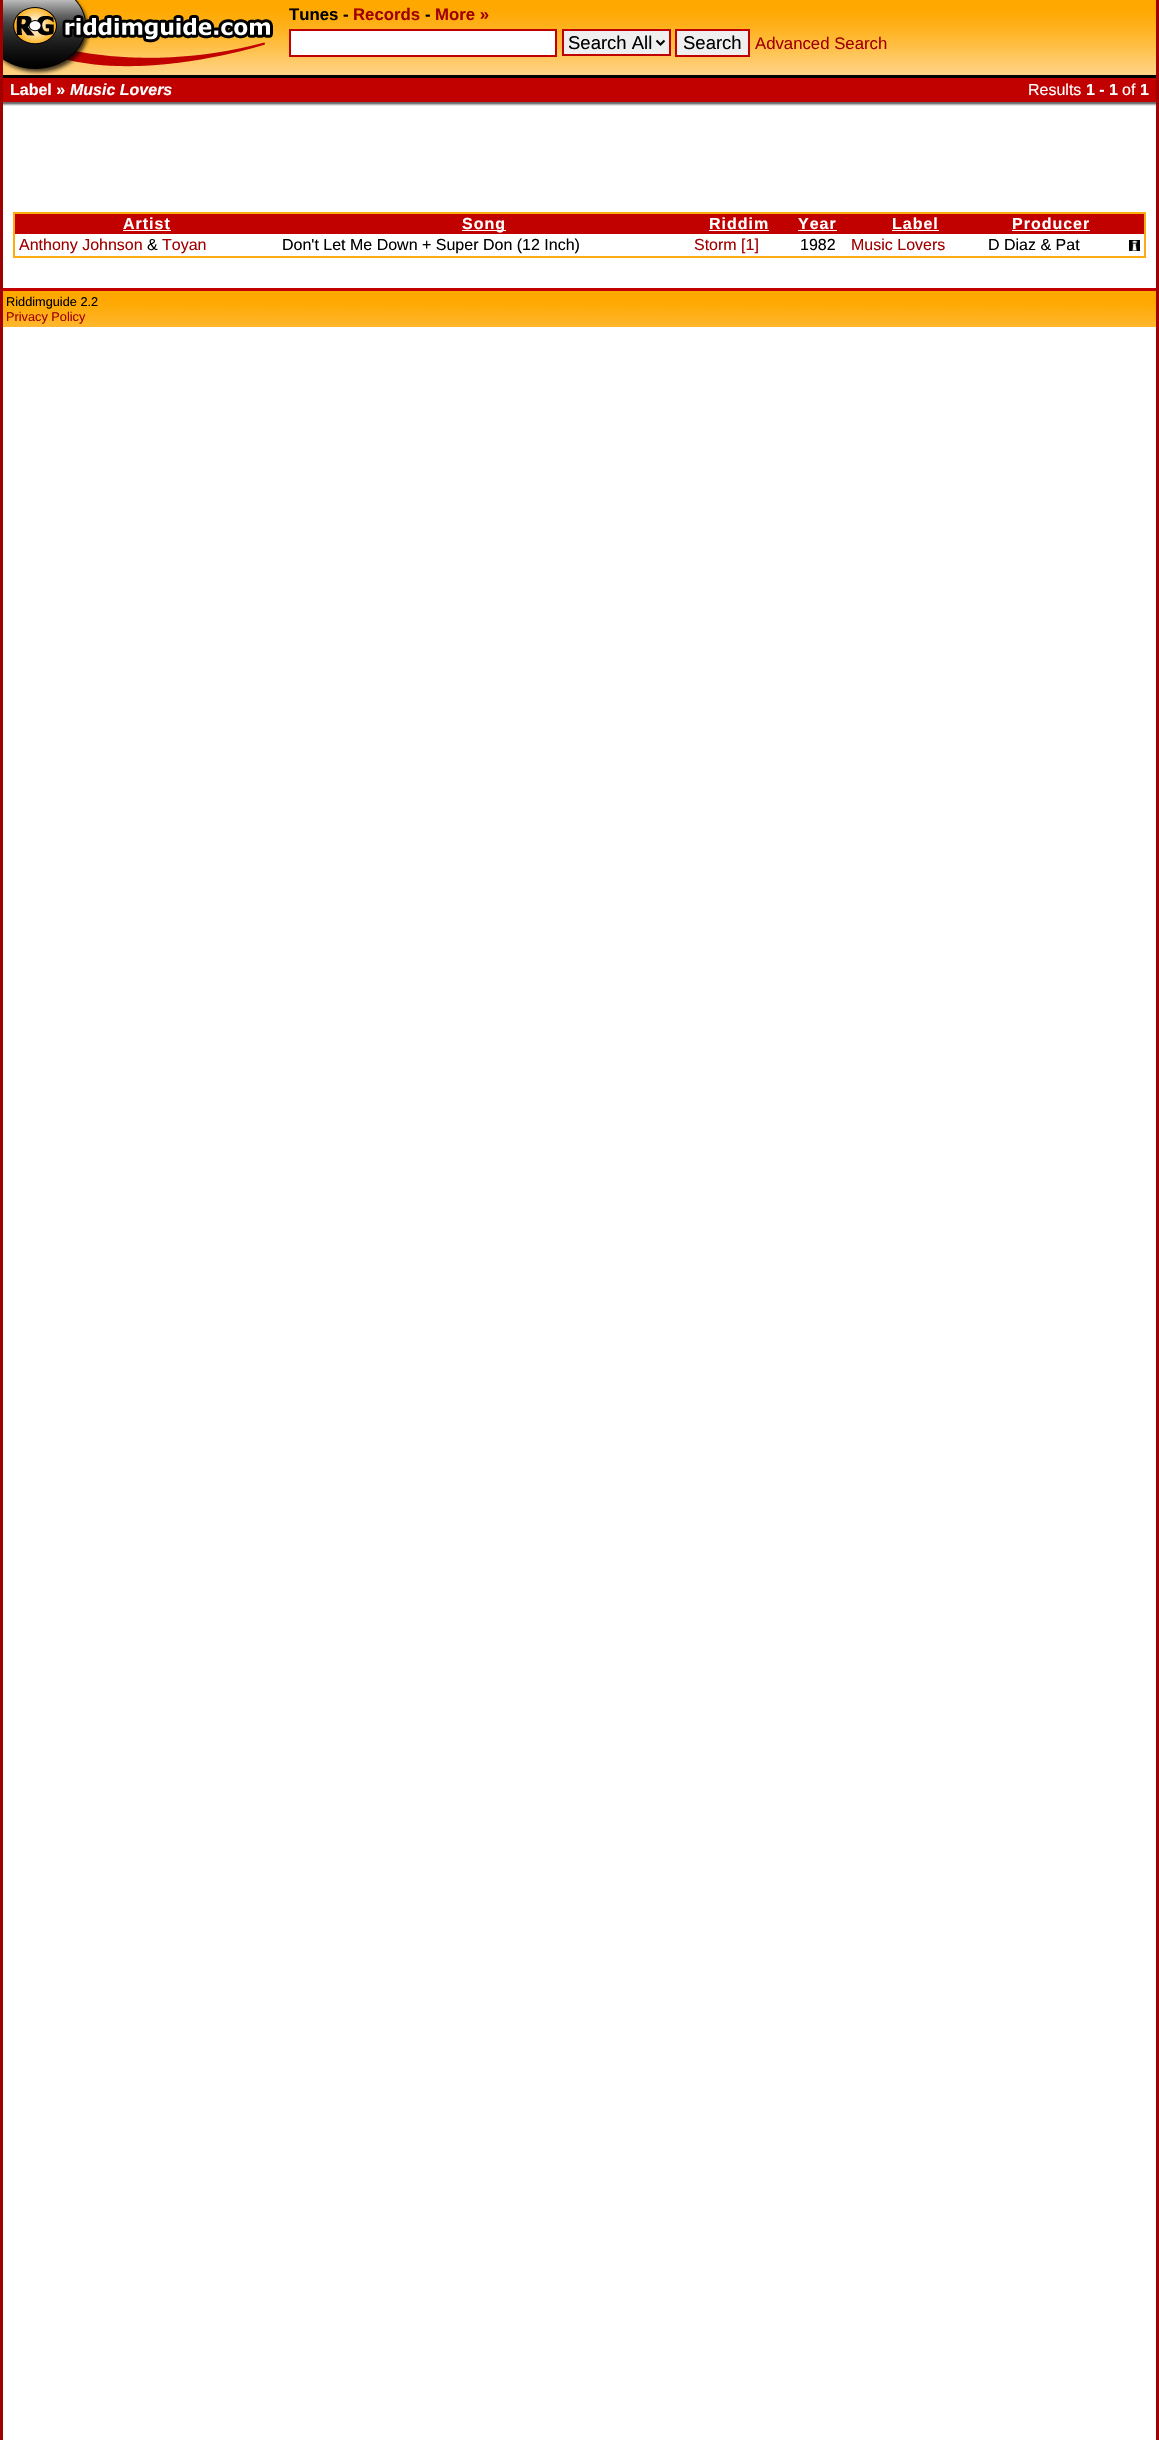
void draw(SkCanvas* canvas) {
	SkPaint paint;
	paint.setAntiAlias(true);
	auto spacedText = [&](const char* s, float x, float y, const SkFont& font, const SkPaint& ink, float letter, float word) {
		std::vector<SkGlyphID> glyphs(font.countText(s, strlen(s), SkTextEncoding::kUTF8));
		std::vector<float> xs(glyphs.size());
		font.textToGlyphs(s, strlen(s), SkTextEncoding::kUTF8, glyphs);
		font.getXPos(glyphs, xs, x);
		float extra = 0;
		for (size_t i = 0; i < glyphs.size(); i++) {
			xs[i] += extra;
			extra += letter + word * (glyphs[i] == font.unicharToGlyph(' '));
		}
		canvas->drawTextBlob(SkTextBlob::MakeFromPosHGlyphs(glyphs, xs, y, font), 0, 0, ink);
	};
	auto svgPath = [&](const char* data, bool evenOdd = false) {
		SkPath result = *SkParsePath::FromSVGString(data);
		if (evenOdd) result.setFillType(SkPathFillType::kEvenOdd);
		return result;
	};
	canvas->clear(0xffffffff);
	paint.setColor(0xffa10000);
	canvas->drawRect(SkRect::MakeXYWH(1156, 0, 3, 2440), paint);
	canvas->drawRect(SkRect::MakeXYWH(0, 0, 3, 2440), paint);
	canvas->drawImageRect(SkImages::DeferredFromEncodedData(SkData::MakeFromFileName("img1.png")), SkRect::MakeXYWH(3, 0, 1153, 75), SkSamplingOptions());
	canvas->drawImageRect(SkImages::DeferredFromEncodedData(SkData::MakeFromFileName("img2.png")), SkRect::MakeXYWH(3, 0, 270, 75), SkSamplingOptions());
	SkFont f1(fontMgr->matchFamilyStyle("Liberation Sans", SkFontStyle::Bold()), 16.75);
	f1.setSubpixel(true);
	paint.setColor(0xff000000);
	canvas->drawString("Tunes -", 289, 20, f1, paint);
	paint.setColor(0xffa10000);
	canvas->drawString("Records", 353, 20, f1, paint);
	paint.setColor(0xff000000);
	canvas->drawString("-", 425, 20, f1, paint);
	paint.setColor(0xffa10000);
	canvas->drawString("More »", 435, 20, f1, paint);
	paint.setColor(0xffffffff);
	canvas->drawRect(SkRect::MakeXYWH(290, 30, 266, 26), paint);
	paint.setStroke(true);
	paint.setStrokeWidth(2);
	paint.setColor(0xffc10000);
	canvas->drawRect(SkRect::MakeXYWH(290, 30, 266, 26), paint);
	paint.setStroke(false);
	paint.setColor(0xffefefef);
	canvas->drawRect(SkRect::MakeXYWH(563, 30, 107, 25), paint);
	paint.setStroke(true);
	paint.setColor(0xffc10000);
	canvas->drawRect(SkRect::MakeXYWH(563, 30, 107, 25), paint);
	paint.setColor(0xff000000);
	canvas->drawPath(svgPath("M656.5 40.5L660.5 44.5L664.5 40.5"), paint);
	SkFont f2(fontMgr->matchFamilyStyle("Liberation Sans", SkFontStyle::Normal()), 18.5);
	f2.setSubpixel(true);
	paint.setStroke(false);
	canvas->drawString("Search All", 568, 49, f2, paint);
	paint.setColor(0xffefefef);
	canvas->drawRect(SkRect::MakeXYWH(676, 30, 73, 26), paint);
	paint.setStroke(true);
	paint.setColor(0xffc10000);
	canvas->drawRect(SkRect::MakeXYWH(676, 30, 73, 26), paint);
	paint.setStroke(false);
	paint.setColor(0xff000000);
	canvas->drawString("Search", 683, 49, f2, paint);
	SkFont f3(fontMgr->matchFamilyStyle("Liberation Sans", SkFontStyle::Normal()), 16.75);
	f3.setSubpixel(true);
	paint.setColor(0xffa10000);
	canvas->drawString("Advanced Search", 755, 49, f3, paint);
	paint.setColor(0xffc10000);
	canvas->drawRect(SkRect::MakeXYWH(3, 78, 1153, 24), paint);
	paint.setColor(0xff000000);
	canvas->drawRect(SkRect::MakeXYWH(3, 75, 1153, 3), paint);
	SkFont f4(fontMgr->matchFamilyStyle("Liberation Sans", SkFontStyle::Bold()), 16);
	f4.setSubpixel(true);
	paint.setColor(0xffffffff);
	canvas->drawString("Label »", 10, 95, f4, paint);
	SkFont f5(fontMgr->matchFamilyStyle("Liberation Sans", SkFontStyle::BoldItalic()), 16);
	f5.setSubpixel(true);
	canvas->drawString("Music Lovers", 70, 95, f5, paint);
	SkFont f6(fontMgr->matchFamilyStyle("Liberation Sans", SkFontStyle::Normal()), 16);
	f6.setSubpixel(true);
	canvas->drawString("Results", 1028, 95, f6, paint);
	canvas->drawString("1 - 1", 1086, 95, f4, paint);
	canvas->drawString("of", 1122, 95, f6, paint);
	canvas->drawString("1", 1140, 95, f4, paint);
	canvas->drawImageRect(SkImages::DeferredFromEncodedData(SkData::MakeFromFileName("img3.png")), SkRect::MakeXYWH(3, 102, 1153, 4), SkSamplingOptions());
	paint.setStroke(true);
	paint.setColor(0xffffac10);
	canvas->drawRect(SkRect::MakeXYWH(14, 213, 1131, 44), paint);
	paint.setStroke(false);
	paint.setColor(0xffc10000);
	canvas->drawRect(SkRect::MakeXYWH(15, 214, 1129, 20), paint);
	paint.setColor(0xffffffff);
	spacedText("Artist", 123, 229, f4, paint, 1, 0);
	canvas->drawRect(SkRect::MakeXYWH(123, 230, 48, 1), paint);
	canvas->drawRect(SkRect::MakeXYWH(462, 230, 44, 1), paint);
	spacedText("Song", 462, 229, f4, paint, 1, 0);
	spacedText("Riddim", 709, 229, f4, paint, 1, 0);
	canvas->drawRect(SkRect::MakeXYWH(709, 230, 60, 1), paint);
	spacedText("Year", 798, 229, f4, paint, 1, 0);
	canvas->drawRect(SkRect::MakeXYWH(798, 230, 39, 1), paint);
	spacedText("Label", 892, 229, f4, paint, 1, 0);
	canvas->drawRect(SkRect::MakeXYWH(892, 230, 47, 1), paint);
	spacedText("Producer", 1012, 229, f4, paint, 1, 0);
	canvas->drawRect(SkRect::MakeXYWH(1012, 230, 78, 1), paint);
	paint.setColor(0xffa10000);
	canvas->drawString("Anthony Johnson", 19, 250, f6, paint);
	paint.setColor(0xff000000);
	canvas->drawString("&", 147, 250, f6, paint);
	paint.setColor(0xffa10000);
	canvas->drawString("Toyan", 162, 250, f6, paint);
	paint.setColor(0xff000000);
	canvas->drawString("Don't Let Me Down + Super Don (12 Inch)", 282, 250, f6, paint);
	paint.setColor(0xffa10000);
	canvas->drawString("Storm [1]", 694, 250, f6, paint);
	paint.setColor(0xff000000);
	canvas->drawString("1982", 800, 250, f6, paint);
	paint.setColor(0xffa10000);
	canvas->drawString("Music Lovers", 851, 250, f6, paint);
	paint.setColor(0xff000000);
	canvas->drawString("D Diaz & Pat", 988, 250, f6, paint);
	canvas->drawImageRect(SkImages::DeferredFromEncodedData(SkData::MakeFromFileName("img4.png")), SkRect::MakeXYWH(1129, 240, 11, 11), SkSamplingOptions());
	canvas->drawImageRect(SkImages::DeferredFromEncodedData(SkData::MakeFromFileName("img5.png")), SkRect::MakeXYWH(3, 291, 1153, 36), SkSamplingOptions());
	paint.setColor(0xffc10000);
	canvas->drawRect(SkRect::MakeXYWH(3, 288, 1153, 3), paint);
	SkFont f7(fontMgr->matchFamilyStyle("Liberation Sans", SkFontStyle::Normal()), 12.75);
	f7.setSubpixel(true);
	paint.setColor(0xff000000);
	canvas->drawString("Riddimguide 2.2", 6, 306, f7, paint);
	paint.setColor(0xffa10000);
	canvas->drawString("Privacy Policy", 6, 321, f7, paint);
}
